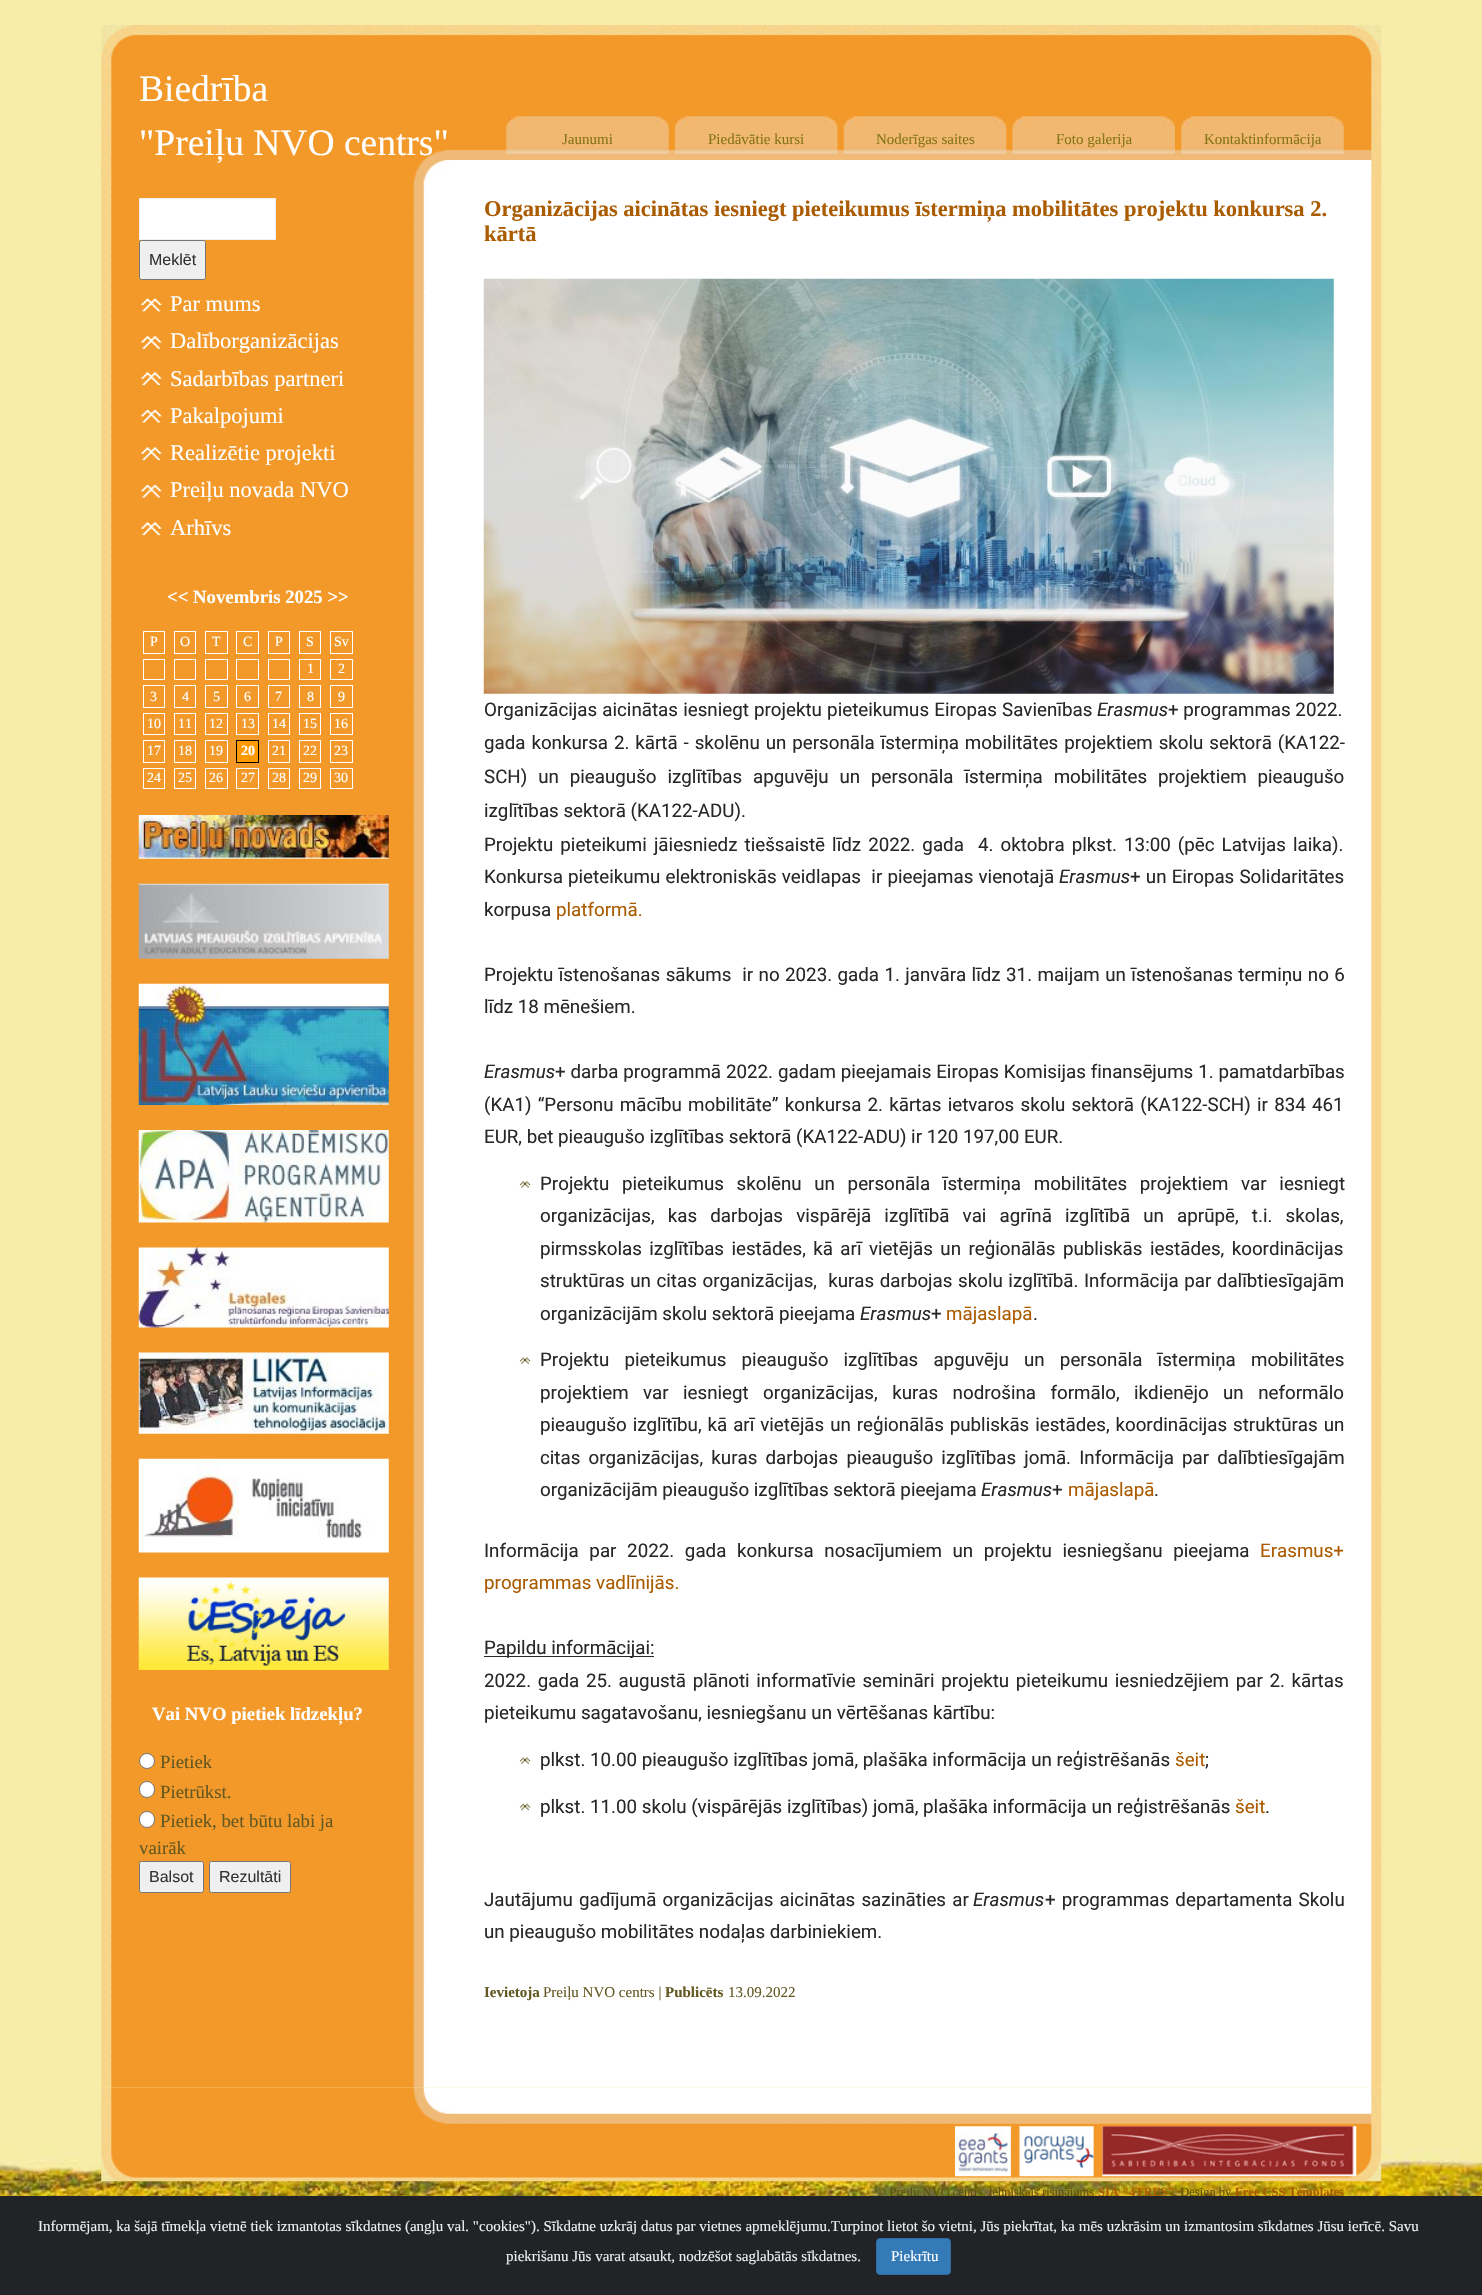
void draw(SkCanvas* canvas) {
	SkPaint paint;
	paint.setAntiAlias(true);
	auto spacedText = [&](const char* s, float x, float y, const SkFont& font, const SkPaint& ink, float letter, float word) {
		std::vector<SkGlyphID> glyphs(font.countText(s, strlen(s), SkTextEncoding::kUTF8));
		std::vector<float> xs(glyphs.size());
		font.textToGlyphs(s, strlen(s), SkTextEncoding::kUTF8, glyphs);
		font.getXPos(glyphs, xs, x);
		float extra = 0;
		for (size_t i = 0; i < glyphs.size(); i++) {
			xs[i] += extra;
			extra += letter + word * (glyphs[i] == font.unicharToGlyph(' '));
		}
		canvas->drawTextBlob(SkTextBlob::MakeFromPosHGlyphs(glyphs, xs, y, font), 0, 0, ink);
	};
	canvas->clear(0xfff8eca9);
	canvas->drawImageRect(SkImages::DeferredFromEncodedData(SkData::MakeFromFileName("img1.png")), SkRect::MakeXYWH(0, 2149, 1482, 47), SkSamplingOptions());
	canvas->drawImageRect(SkImages::DeferredFromEncodedData(SkData::MakeFromFileName("img2.png")), SkRect::MakeXYWH(101, 25, 1281, 135), SkSamplingOptions());
	SkFont f1(fontMgr->matchFamilyStyle("Liberation Serif", SkFontStyle::Normal()), 37.5);
	f1.setSubpixel(true);
	paint.setColor(0xffffffff);
	canvas->drawString("Biedrība", 139, 101, f1, paint);
	canvas->drawImageRect(SkImages::DeferredFromEncodedData(SkData::MakeFromFileName("img7.png")), SkRect::MakeXYWH(101, 160, 1281, 1928), SkSamplingOptions());
	canvas->drawImageRect(SkImages::DeferredFromEncodedData(SkData::MakeFromFileName("img8.png")), SkRect::MakeXYWH(101, 160, 1281, 22), SkSamplingOptions());
	canvas->drawString("\"Preiļu NVO centrs\"", 139, 155, f1, paint);
	canvas->drawImageRect(SkImages::DeferredFromEncodedData(SkData::MakeFromFileName("img3.png")), SkRect::MakeXYWH(506, 116, 163, 38), SkSamplingOptions());
	SkFont f2(fontMgr->matchFamilyStyle("Liberation Serif", SkFontStyle::Normal()), 15);
	f2.setSubpixel(true);
	paint.setColor(0xff857415);
	canvas->drawString("Jaunumi", 562, 144, f2, paint);
	canvas->drawImageRect(SkImages::DeferredFromEncodedData(SkData::MakeFromFileName("img4.png")), SkRect::MakeXYWH(675, 116, 163, 38), SkSamplingOptions());
	canvas->drawString("Piedāvātie kursi", 708, 144, f2, paint);
	canvas->drawImageRect(SkImages::DeferredFromEncodedData(SkData::MakeFromFileName("img5.png")), SkRect::MakeXYWH(843, 116, 164, 38), SkSamplingOptions());
	canvas->drawString("Noderīgas saites", 876, 144, f2, paint);
	canvas->drawImageRect(SkImages::DeferredFromEncodedData(SkData::MakeFromFileName("img6.png")), SkRect::MakeXYWH(1012, 116, 163, 38), SkSamplingOptions());
	canvas->drawString("Foto galerija", 1056, 144, f2, paint);
	canvas->drawImageRect(SkImages::DeferredFromEncodedData(SkData::MakeFromFileName("img3.png")), SkRect::MakeXYWH(1181, 116, 163, 38), SkSamplingOptions());
	canvas->drawString("Kontaktinformācija", 1204, 144, f2, paint);
	paint.setColor(0xffffffff);
	canvas->drawRect(SkRect::MakeXYWH(139.5, 198.5, 136, 41), paint);
	paint.setStroke(true);
	paint.setStrokeWidth(1);
	paint.setColor(0xfff0f0f0);
	canvas->drawRect(SkRect::MakeXYWH(139.5, 198.5, 136, 41), paint);
	paint.setStroke(false);
	paint.setColor(0xffefefef);
	canvas->drawRoundRect(SkRect::MakeXYWH(139.5, 240.5, 66, 39), 2, 2, paint);
	paint.setStroke(true);
	paint.setColor(0xff767676);
	canvas->drawRoundRect(SkRect::MakeXYWH(139.5, 240.5, 66, 39), 2, 2, paint);
	SkFont f3(fontMgr->matchFamilyStyle("Liberation Sans", SkFontStyle::Normal()), 16);
	f3.setSubpixel(true);
	paint.setStroke(false);
	paint.setColor(0xff333333);
	canvas->drawString("Meklēt", 149, 265, f3, paint);
	canvas->drawImageRect(SkImages::DeferredFromEncodedData(SkData::MakeFromFileName("img9.png")), SkRect::MakeXYWH(141, 298, 21, 14), SkSamplingOptions());
	SkFont f4(fontMgr->matchFamilyStyle("Liberation Serif", SkFontStyle::Normal()), 22.5);
	f4.setSubpixel(true);
	paint.setColor(0xffffffff);
	canvas->drawString("Par mums", 170, 311, f4, paint);
	canvas->drawImageRect(SkImages::DeferredFromEncodedData(SkData::MakeFromFileName("img10.png")), SkRect::MakeXYWH(141, 336, 21, 13), SkSamplingOptions());
	canvas->drawString("Dalīborganizācijas", 170, 348, f4, paint);
	canvas->drawImageRect(SkImages::DeferredFromEncodedData(SkData::MakeFromFileName("img11.png")), SkRect::MakeXYWH(141, 372, 21, 14), SkSamplingOptions());
	canvas->drawString("Sadarbības partneri", 170, 386, f4, paint);
	canvas->drawImageRect(SkImages::DeferredFromEncodedData(SkData::MakeFromFileName("img12.png")), SkRect::MakeXYWH(141, 409, 21, 14), SkSamplingOptions());
	canvas->drawString("Pakalpojumi", 170, 423, f4, paint);
	canvas->drawImageRect(SkImages::DeferredFromEncodedData(SkData::MakeFromFileName("img11.png")), SkRect::MakeXYWH(141, 447, 21, 14), SkSamplingOptions());
	canvas->drawString("Realizētie projekti", 170, 460, f4, paint);
	canvas->drawImageRect(SkImages::DeferredFromEncodedData(SkData::MakeFromFileName("img12.png")), SkRect::MakeXYWH(141, 484, 21, 14), SkSamplingOptions());
	canvas->drawString("Preiļu novada NVO", 170, 497, f4, paint);
	canvas->drawImageRect(SkImages::DeferredFromEncodedData(SkData::MakeFromFileName("img11.png")), SkRect::MakeXYWH(141, 522, 21, 14), SkSamplingOptions());
	canvas->drawString("Arhīvs", 170, 535, f4, paint);
	SkFont f5(fontMgr->matchFamilyStyle("Liberation Serif", SkFontStyle::Bold()), 22.5);
	f5.setSubpixel(true);
	paint.setColor(0xffab5b00);
	canvas->drawString("Organizācijas aicinātas iesniegt pieteikumus īstermiņa mobilitātes projektu konkursa 2.", 484, 216, f5, paint);
	canvas->drawString("kārtā", 484, 241, f5, paint);
	canvas->drawImageRect(SkImages::DeferredFromEncodedData(SkData::MakeFromFileName("img13.png")), SkRect::MakeXYWH(483, 278, 851, 416), SkSamplingOptions());
	SkFont f6(fontMgr->matchFamilyStyle("Roboto", SkFontStyle::Normal()), 18.75);
	f6.setSubpixel(true);
	paint.setColor(0xff282828);
	spacedText("Organizācijas aicinātas iesniegt projektu pieteikumus Eiropas Savienības", 484, 716, f6, paint, 0, 0.5);
	SkFont f7(fontMgr->matchFamilyStyle("Roboto", SkFontStyle::Italic()), 18.75);
	f7.setSubpixel(true);
	canvas->drawString("Erasmus", 1097, 716, f7, paint);
	canvas->drawString("+ programmas 2022.", 1168, 716, f6, paint);
	spacedText("gada konkursa 2. kārtā - skolēnu un personāla īstermiņa mobilitātes projektiem skolu sektorā (KA122-", 484, 749, f6, paint, 0, 1.25);
	spacedText("SCH) un pieaugušo izglītības apguvēju un personāla īstermiņa mobilitātes projektiem pieaugušo", 484, 783, f6, paint, 0, 6.25);
	canvas->drawString("izglītības sektorā (KA122-ADU).", 484, 817, f6, paint);
	spacedText("Projektu pieteikumi jāiesniedz tiešsaistē līdz 2022. gada  4. oktobra plkst. 13:00 (pēc Latvijas laika).", 484, 851, f6, paint, 0, 2.4);
	spacedText("Konkursa pieteikumu elektroniskās veidlapas  ir pieejamas vienotajā", 484, 883, f6, paint, 0, 0.5);
	canvas->drawString("Erasmus", 1059, 883, f7, paint);
	spacedText("+ un Eiropas Solidaritātes", 1130, 883, f6, paint, 0, 0.5);
	canvas->drawString("korpusa", 484, 916, f6, paint);
	paint.setColor(0xffab5b00);
	canvas->drawString("platformā.", 556, 916, f6, paint);
	paint.setColor(0xff282828);
	spacedText("Projektu īstenošanas sākums  ir no 2023. gada 1. janvāra līdz 31. maijam un īstenošanas termiņu no 6", 484, 981, f6, paint, 0, 0.75);
	canvas->drawString("līdz 18 mēnešiem.", 484, 1013, f6, paint);
	canvas->drawString("Erasmus", 484, 1078, f7, paint);
	spacedText("+ darba programmā 2022. gadam pieejamais Eiropas Komisijas finansējums 1. pamatdarbības", 555, 1078, f6, paint, 0, 0.25);
	spacedText("(KA1) “Personu mācību mobilitāte” konkursa 2. kārtas ietvaros skolu sektorā (KA122-SCH) ir 834 461", 484, 1111, f6, paint, 0, 1.6);
	canvas->drawString("EUR, bet pieaugušo izglītības sektorā (KA122-ADU) ir 120 197,00 EUR.", 484, 1143, f6, paint);
	canvas->drawImageRect(SkImages::DeferredFromEncodedData(SkData::MakeFromFileName("img14.png")), SkRect::MakeXYWH(519, 1181, 12, 7), SkSamplingOptions());
	spacedText("Projektu pieteikumus skolēnu un personāla īstermiņa mobilitātes projektiem var iesniegt", 540, 1190, f6, paint, 0, 8);
	spacedText("organizācijas, kas darbojas vispārējā izglītībā vai agrīnā izglītībā un aprūpē, t.i. skolas,", 540, 1222, f6, paint, 0, 8.5);
	spacedText("pirmsskolas izglītības iestādes, kā arī vietējās un reģionālās publiskās iestādes, koordinācijas", 540, 1255, f6, paint, 0, 2.75);
	spacedText("struktūras un citas organizācijas,  kuras darbojas skolu izglītībā. Informācija par dalībtiesīgajām", 540, 1287, f6, paint, 0, 0.9);
	canvas->drawString("organizācijām skolu sektorā pieejama", 540, 1320, f6, paint);
	canvas->drawString("Erasmus", 860, 1320, f7, paint);
	canvas->drawString("+", 931, 1320, f6, paint);
	paint.setColor(0xffab5b00);
	canvas->drawString("mājaslapā", 946, 1320, f6, paint);
	paint.setColor(0xff282828);
	canvas->drawString(".", 1033, 1320, f6, paint);
	canvas->drawImageRect(SkImages::DeferredFromEncodedData(SkData::MakeFromFileName("img15.png")), SkRect::MakeXYWH(519, 1357, 12, 7), SkSamplingOptions());
	spacedText("Projektu pieteikumus pieaugušo izglītības apguvēju un personāla īstermiņa mobilitātes", 540, 1366, f6, paint, 0, 10.5);
	spacedText("projektiem var iesniegt organizācijas, kuras nodrošina formālo, ikdienējo un neformālo", 540, 1399, f6, paint, 0, 9.75);
	spacedText("pieaugušo izglītību, kā arī vietējās un reģionālās publiskās iestādes, koordinācijas struktūras un", 540, 1431, f6, paint, 0, 1.25);
	spacedText("citas organizācijas, kuras darbojas pieaugušo izglītības jomā. Informācija par dalībtiesīgajām", 540, 1464, f6, paint, 0, 3.5);
	canvas->drawString("organizācijām pieaugušo izglītības sektorā pieejama", 540, 1496, f6, paint);
	canvas->drawString("Erasmus", 981, 1496, f7, paint);
	canvas->drawString("+", 1052, 1496, f6, paint);
	paint.setColor(0xffab5b00);
	canvas->drawString("mājaslapā", 1068, 1496, f6, paint);
	paint.setColor(0xff282828);
	canvas->drawString(".", 1154, 1496, f6, paint);
	spacedText("Informācija par 2022. gada konkursa nosacījumiem un projektu iesniegšanu pieejama", 484, 1557, f6, paint, 0, 6);
	paint.setColor(0xffab5b00);
	canvas->drawString("Erasmus+", 1260, 1557, f6, paint);
	canvas->drawString("programmas vadlīnijās.", 484, 1589, f6, paint);
	paint.setColor(0xff282828);
	canvas->drawRect(SkRect::MakeXYWH(484, 1656, 170, 1), paint);
	canvas->drawString("Papildu informācijai:", 484, 1654, f6, paint);
	spacedText("2022. gada 25. augustā plānoti informatīvie semināri projektu pieteikumu iesniedzējiem par 2. kārtas", 484, 1687, f6, paint, 0, 2);
	canvas->drawString("pieteikumu sagatavošanu, iesniegšanu un vērtēšanas kārtību:", 484, 1719, f6, paint);
	canvas->drawImageRect(SkImages::DeferredFromEncodedData(SkData::MakeFromFileName("img15.png")), SkRect::MakeXYWH(519, 1757, 12, 7), SkSamplingOptions());
	canvas->drawString("plkst. 10.00 pieaugušo izglītības jomā, plašāka informācija un reģistrēšanās", 540, 1766, f6, paint);
	paint.setColor(0xffab5b00);
	canvas->drawString("šeit", 1175, 1766, f6, paint);
	paint.setColor(0xff282828);
	canvas->drawString(";", 1205, 1766, f6, paint);
	canvas->drawImageRect(SkImages::DeferredFromEncodedData(SkData::MakeFromFileName("img16.png")), SkRect::MakeXYWH(519, 1803, 12, 8), SkSamplingOptions());
	canvas->drawString("plkst. 11.00 skolu (vispārējās izglītības) jomā, plašāka informācija un reģistrēšanās", 540, 1813, f6, paint);
	paint.setColor(0xffab5b00);
	canvas->drawString("šeit", 1235, 1813, f6, paint);
	paint.setColor(0xff282828);
	canvas->drawString(".", 1265, 1813, f6, paint);
	spacedText("Jautājumu gadījumā organizācijas aicinātas sazināties ar", 484, 1906, f6, paint, 0, 1.5);
	canvas->drawString("Erasmus", 973, 1906, f7, paint);
	spacedText("+ programmas departamenta Skolu", 1045, 1906, f6, paint, 0, 1.5);
	canvas->drawString("un pieaugušo mobilitātes nodaļas darbiniekiem.", 484, 1938, f6, paint);
	SkFont f8(fontMgr->matchFamilyStyle("Liberation Serif", SkFontStyle::Bold()), 15);
	f8.setSubpixel(true);
	paint.setColor(0xff635821);
	canvas->drawString("Ievietoja", 484, 1997, f8, paint);
	canvas->drawString("Preiļu NVO centrs |", 543, 1997, f2, paint);
	canvas->drawString("Publicēts", 665, 1997, f8, paint);
	canvas->drawString("13.09.2022", 728, 1997, f2, paint);
	SkFont f9(fontMgr->matchFamilyStyle("Liberation Serif", SkFontStyle::Bold()), 18.75);
	f9.setSubpixel(true);
	paint.setColor(0xffffffff);
	canvas->drawString("<< Novembris 2025 >>", 167, 603, f9, paint);
	paint.setStroke(true);
	canvas->drawRect(SkRect::MakeXYWH(143.5, 631.5, 21, 22), paint);
	SkFont f10(fontMgr->matchFamilyStyle("Liberation Serif", SkFontStyle::Normal()), 14);
	f10.setSubpixel(true);
	paint.setStroke(false);
	canvas->drawString("P", 150, 646, f10, paint);
	paint.setStroke(true);
	canvas->drawRect(SkRect::MakeXYWH(174.5, 631.5, 21, 22), paint);
	paint.setStroke(false);
	canvas->drawString("O", 180, 646, f10, paint);
	paint.setStroke(true);
	canvas->drawRect(SkRect::MakeXYWH(205.5, 631.5, 22, 22), paint);
	paint.setStroke(false);
	canvas->drawString("T", 212, 646, f10, paint);
	paint.setStroke(true);
	canvas->drawRect(SkRect::MakeXYWH(236.5, 631.5, 22, 22), paint);
	paint.setStroke(false);
	canvas->drawString("C", 243, 646, f10, paint);
	paint.setStroke(true);
	canvas->drawRect(SkRect::MakeXYWH(268.5, 631.5, 21, 22), paint);
	paint.setStroke(false);
	canvas->drawString("P", 275, 646, f10, paint);
	paint.setStroke(true);
	canvas->drawRect(SkRect::MakeXYWH(299.5, 631.5, 21, 22), paint);
	paint.setStroke(false);
	canvas->drawString("S", 306, 646, f10, paint);
	paint.setStroke(true);
	canvas->drawRect(SkRect::MakeXYWH(330.5, 631.5, 22, 22), paint);
	paint.setStroke(false);
	canvas->drawString("Sv", 334, 646, f10, paint);
	paint.setStroke(true);
	canvas->drawRect(SkRect::MakeXYWH(143.5, 659.5, 21, 20), paint);
	canvas->drawRect(SkRect::MakeXYWH(174.5, 659.5, 21, 20), paint);
	canvas->drawRect(SkRect::MakeXYWH(205.5, 659.5, 22, 20), paint);
	canvas->drawRect(SkRect::MakeXYWH(236.5, 659.5, 22, 20), paint);
	canvas->drawRect(SkRect::MakeXYWH(268.5, 659.5, 21, 20), paint);
	canvas->drawRect(SkRect::MakeXYWH(299.5, 659.5, 21, 20), paint);
	paint.setStroke(false);
	canvas->drawString("1", 307, 673, f10, paint);
	paint.setStroke(true);
	canvas->drawRect(SkRect::MakeXYWH(330.5, 659.5, 22, 20), paint);
	paint.setStroke(false);
	canvas->drawString("2", 338, 673, f10, paint);
	paint.setStroke(true);
	canvas->drawRect(SkRect::MakeXYWH(143.5, 685.5, 21, 22), paint);
	paint.setStroke(false);
	canvas->drawString("3", 150, 701, f10, paint);
	paint.setStroke(true);
	canvas->drawRect(SkRect::MakeXYWH(174.5, 685.5, 21, 22), paint);
	paint.setStroke(false);
	canvas->drawString("4", 182, 701, f10, paint);
	paint.setStroke(true);
	canvas->drawRect(SkRect::MakeXYWH(205.5, 685.5, 22, 22), paint);
	paint.setStroke(false);
	canvas->drawString("5", 213, 701, f10, paint);
	paint.setStroke(true);
	canvas->drawRect(SkRect::MakeXYWH(236.5, 685.5, 22, 22), paint);
	paint.setStroke(false);
	canvas->drawString("6", 244, 701, f10, paint);
	paint.setStroke(true);
	canvas->drawRect(SkRect::MakeXYWH(268.5, 685.5, 21, 22), paint);
	paint.setStroke(false);
	canvas->drawString("7", 275, 701, f10, paint);
	paint.setStroke(true);
	canvas->drawRect(SkRect::MakeXYWH(299.5, 685.5, 21, 22), paint);
	paint.setStroke(false);
	canvas->drawString("8", 307, 701, f10, paint);
	paint.setStroke(true);
	canvas->drawRect(SkRect::MakeXYWH(330.5, 685.5, 22, 22), paint);
	paint.setStroke(false);
	canvas->drawString("9", 338, 701, f10, paint);
	paint.setStroke(true);
	canvas->drawRect(SkRect::MakeXYWH(143.5, 713.5, 21, 21), paint);
	paint.setStroke(false);
	canvas->drawString("10", 147, 728, f10, paint);
	paint.setStroke(true);
	canvas->drawRect(SkRect::MakeXYWH(174.5, 713.5, 21, 21), paint);
	paint.setStroke(false);
	canvas->drawString("11", 178, 728, f10, paint);
	paint.setStroke(true);
	canvas->drawRect(SkRect::MakeXYWH(205.5, 713.5, 22, 21), paint);
	paint.setStroke(false);
	canvas->drawString("12", 209, 728, f10, paint);
	paint.setStroke(true);
	canvas->drawRect(SkRect::MakeXYWH(236.5, 713.5, 22, 21), paint);
	paint.setStroke(false);
	canvas->drawString("13", 241, 728, f10, paint);
	paint.setStroke(true);
	canvas->drawRect(SkRect::MakeXYWH(268.5, 713.5, 21, 21), paint);
	paint.setStroke(false);
	canvas->drawString("14", 272, 728, f10, paint);
	paint.setStroke(true);
	canvas->drawRect(SkRect::MakeXYWH(299.5, 713.5, 21, 21), paint);
	paint.setStroke(false);
	canvas->drawString("15", 303, 728, f10, paint);
	paint.setStroke(true);
	canvas->drawRect(SkRect::MakeXYWH(330.5, 713.5, 22, 21), paint);
	paint.setStroke(false);
	canvas->drawString("16", 334, 728, f10, paint);
	paint.setStroke(true);
	canvas->drawRect(SkRect::MakeXYWH(143.5, 740.5, 21, 22), paint);
	paint.setStroke(false);
	canvas->drawString("17", 147, 755, f10, paint);
	paint.setStroke(true);
	canvas->drawRect(SkRect::MakeXYWH(174.5, 740.5, 21, 22), paint);
	paint.setStroke(false);
	canvas->drawString("18", 178, 755, f10, paint);
	paint.setStroke(true);
	canvas->drawRect(SkRect::MakeXYWH(205.5, 740.5, 22, 22), paint);
	paint.setStroke(false);
	canvas->drawString("19", 209, 755, f10, paint);
	paint.setColor(0xffff9900);
	canvas->drawRect(SkRect::MakeXYWH(236.5, 740.5, 22, 22), paint);
	paint.setStroke(true);
	paint.setColor(0xff000000);
	canvas->drawRect(SkRect::MakeXYWH(236.5, 740.5, 22, 22), paint);
	SkFont f11(fontMgr->matchFamilyStyle("Liberation Serif", SkFontStyle::Bold()), 14);
	f11.setSubpixel(true);
	paint.setStroke(false);
	paint.setColor(0xffffffff);
	canvas->drawString("20", 241, 755, f11, paint);
	paint.setStroke(true);
	canvas->drawRect(SkRect::MakeXYWH(268.5, 740.5, 21, 22), paint);
	paint.setStroke(false);
	canvas->drawString("21", 272, 755, f10, paint);
	paint.setStroke(true);
	canvas->drawRect(SkRect::MakeXYWH(299.5, 740.5, 21, 22), paint);
	paint.setStroke(false);
	canvas->drawString("22", 303, 755, f10, paint);
	paint.setStroke(true);
	canvas->drawRect(SkRect::MakeXYWH(330.5, 740.5, 22, 22), paint);
	paint.setStroke(false);
	canvas->drawString("23", 334, 755, f10, paint);
	paint.setStroke(true);
	canvas->drawRect(SkRect::MakeXYWH(143.5, 768.5, 21, 20), paint);
	paint.setStroke(false);
	canvas->drawString("24", 147, 782, f10, paint);
	paint.setStroke(true);
	canvas->drawRect(SkRect::MakeXYWH(174.5, 768.5, 21, 20), paint);
	paint.setStroke(false);
	canvas->drawString("25", 178, 782, f10, paint);
	paint.setStroke(true);
	canvas->drawRect(SkRect::MakeXYWH(205.5, 768.5, 22, 20), paint);
	paint.setStroke(false);
	canvas->drawString("26", 209, 782, f10, paint);
	paint.setStroke(true);
	canvas->drawRect(SkRect::MakeXYWH(236.5, 768.5, 22, 20), paint);
	paint.setStroke(false);
	canvas->drawString("27", 241, 782, f10, paint);
	paint.setStroke(true);
	canvas->drawRect(SkRect::MakeXYWH(268.5, 768.5, 21, 20), paint);
	paint.setStroke(false);
	canvas->drawString("28", 272, 782, f10, paint);
	paint.setStroke(true);
	canvas->drawRect(SkRect::MakeXYWH(299.5, 768.5, 21, 20), paint);
	paint.setStroke(false);
	canvas->drawString("29", 303, 782, f10, paint);
	paint.setStroke(true);
	canvas->drawRect(SkRect::MakeXYWH(330.5, 768.5, 22, 20), paint);
	paint.setStroke(false);
	canvas->drawString("30", 334, 782, f10, paint);
	canvas->drawImageRect(SkImages::DeferredFromEncodedData(SkData::MakeFromFileName("img17.png")), SkRect::MakeXYWH(138, 815, 251, 44), SkSamplingOptions());
	canvas->drawImageRect(SkImages::DeferredFromEncodedData(SkData::MakeFromFileName("img18.png")), SkRect::MakeXYWH(138, 883, 251, 76), SkSamplingOptions());
	canvas->drawImageRect(SkImages::DeferredFromEncodedData(SkData::MakeFromFileName("img19.png")), SkRect::MakeXYWH(138, 983, 251, 122), SkSamplingOptions());
	canvas->drawImageRect(SkImages::DeferredFromEncodedData(SkData::MakeFromFileName("img20.png")), SkRect::MakeXYWH(138, 1130, 251, 93), SkSamplingOptions());
	canvas->drawImageRect(SkImages::DeferredFromEncodedData(SkData::MakeFromFileName("img21.png")), SkRect::MakeXYWH(138, 1247, 251, 81), SkSamplingOptions());
	canvas->drawImageRect(SkImages::DeferredFromEncodedData(SkData::MakeFromFileName("img22.png")), SkRect::MakeXYWH(138, 1352, 251, 82), SkSamplingOptions());
	canvas->drawImageRect(SkImages::DeferredFromEncodedData(SkData::MakeFromFileName("img23.png")), SkRect::MakeXYWH(138, 1458, 251, 95), SkSamplingOptions());
	canvas->drawImageRect(SkImages::DeferredFromEncodedData(SkData::MakeFromFileName("img24.png")), SkRect::MakeXYWH(138, 1577, 251, 93), SkSamplingOptions());
	canvas->drawString("Vai NVO pietiek līdzekļu?", 152, 1720, f9, paint);
	canvas->drawCircle(147, 1761, 7.5, paint);
	paint.setStroke(true);
	paint.setColor(0xff767676);
	canvas->drawCircle(147, 1761, 7.5, paint);
	SkFont f12(fontMgr->matchFamilyStyle("Liberation Serif", SkFontStyle::Normal()), 18.75);
	f12.setSubpixel(true);
	paint.setStroke(false);
	paint.setColor(0xff635821);
	canvas->drawString("Pietiek", 160, 1768, f12, paint);
	paint.setColor(0xffffffff);
	canvas->drawRoundRect(SkRect::MakeXYWH(139.5, 1781.5, 15, 16), 7.5, 7.5, paint);
	paint.setStroke(true);
	paint.setColor(0xff767676);
	canvas->drawRoundRect(SkRect::MakeXYWH(139.5, 1781.5, 15, 16), 7.5, 7.5, paint);
	paint.setStroke(false);
	paint.setColor(0xff635821);
	canvas->drawString("Pietrūkst.", 160, 1798, f12, paint);
	paint.setColor(0xffffffff);
	canvas->drawRoundRect(SkRect::MakeXYWH(139.5, 1811.5, 15, 16), 7.5, 7.5, paint);
	paint.setStroke(true);
	paint.setColor(0xff767676);
	canvas->drawRoundRect(SkRect::MakeXYWH(139.5, 1811.5, 15, 16), 7.5, 7.5, paint);
	paint.setStroke(false);
	paint.setColor(0xff635821);
	canvas->drawString("Pietiek, bet būtu labi ja", 160, 1827, f12, paint);
	canvas->drawString("vairāk", 139, 1854, f12, paint);
	paint.setColor(0xffefefef);
	canvas->drawRoundRect(SkRect::MakeXYWH(139.5, 1861.5, 64, 31), 2, 2, paint);
	paint.setStroke(true);
	paint.setColor(0xff767676);
	canvas->drawRoundRect(SkRect::MakeXYWH(139.5, 1861.5, 64, 31), 2, 2, paint);
	paint.setStroke(false);
	paint.setColor(0xff333333);
	canvas->drawString("Balsot", 149, 1882, f3, paint);
	paint.setColor(0xffefefef);
	canvas->drawRoundRect(SkRect::MakeXYWH(209.5, 1861.5, 81, 31), 2, 2, paint);
	paint.setStroke(true);
	paint.setColor(0xff767676);
	canvas->drawRoundRect(SkRect::MakeXYWH(209.5, 1861.5, 81, 31), 2, 2, paint);
	paint.setStroke(false);
	paint.setColor(0xff333333);
	canvas->drawString("Rezultāti", 219, 1882, f3, paint);
	canvas->drawImageRect(SkImages::DeferredFromEncodedData(SkData::MakeFromFileName("img25.png")), SkRect::MakeXYWH(101, 2087, 1281, 95), SkSamplingOptions());
	canvas->drawImageRect(SkImages::DeferredFromEncodedData(SkData::MakeFromFileName("img26.png")), SkRect::MakeXYWH(955, 2126, 402, 51), SkSamplingOptions());
	SkFont f13(fontMgr->matchFamilyStyle("Liberation Serif", SkFontStyle::Normal()), 12.5);
	f13.setSubpixel(true);
	paint.setColor(0xff5e510e);
	canvas->drawString("© Preiļu NVO centrs, tehniskais risinājums", 877, 2196, f13, paint);
	SkFont f14(fontMgr->matchFamilyStyle("Liberation Serif", SkFontStyle::Bold()), 12.5);
	f14.setSubpixel(true);
	paint.setColor(0xffab5b00);
	canvas->drawString("SIA \"4TRES\"", 1098, 2196, f14, paint);
	paint.setColor(0xff5e510e);
	canvas->drawString(", Design by", 1174, 2196, f13, paint);
	paint.setColor(0xffab5b00);
	canvas->drawString("Free CSS Templates", 1235, 2196, f14, paint);
	paint.setColor(0xff212327);
	canvas->drawRect(SkRect::MakeXYWH(0, 2196, 1482, 99), paint);
	paint.setColor(0xffecf0f1);
	canvas->drawString("Informējam, ka šajā tīmekļa vietnē tiek izmantotas sīkdatnes (angļu val. \"cookies\"). Sīkdatne uzkrāj datus par vietnes apmeklējumu.Turpinot lietot šo vietni, Jūs piekrītat, ka mēs uzkrāsim un izmantosim sīkdatnes Jūsu ierīcē. Savu", 38, 2231, f2, paint);
	canvas->drawString("piekrišanu Jūs varat atsaukt, nodzēšot saglabātās sīkdatnes.", 506, 2261, f2, paint);
	paint.setColor(0xff337ab7);
	canvas->drawRoundRect(SkRect::MakeXYWH(876.5, 2238.5, 74, 36), 3.5, 3.5, paint);
	paint.setStroke(true);
	paint.setColor(0xff2e6da4);
	canvas->drawRoundRect(SkRect::MakeXYWH(876.5, 2238.5, 74, 36), 3.5, 3.5, paint);
	paint.setStroke(false);
	paint.setColor(0xffffffff);
	canvas->drawString("Piekrītu", 891, 2261, f2, paint);
}
